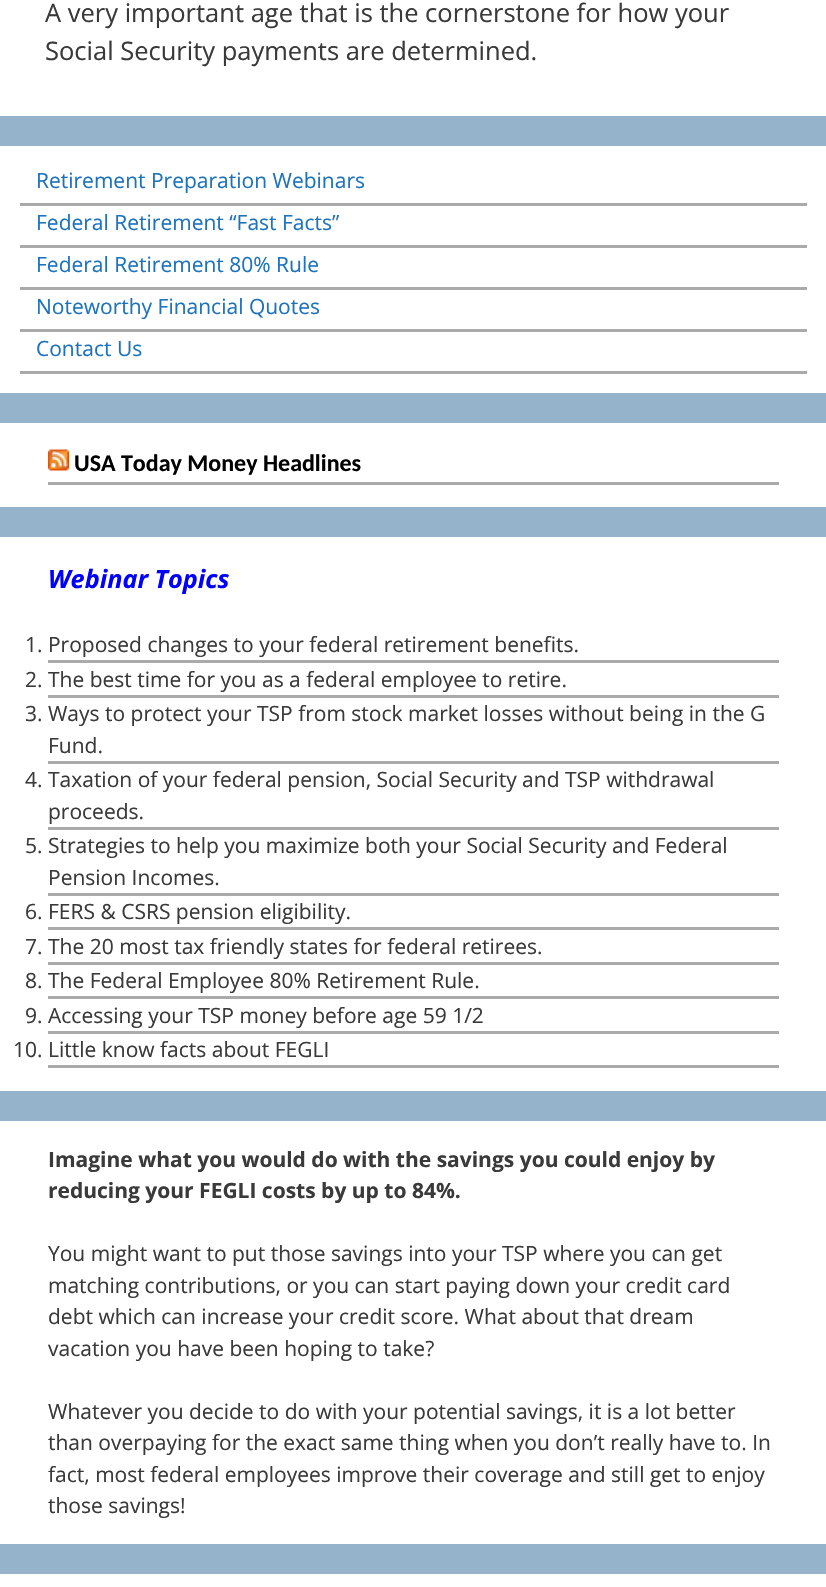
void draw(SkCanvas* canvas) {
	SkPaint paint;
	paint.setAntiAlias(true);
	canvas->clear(0xff96b3cc);
	paint.setColor(0xffffffff);
	canvas->drawRect(SkRect::MakeXYWH(0, 0, 826, 116), paint);
	SkFont f1(fontMgr->matchFamilyStyle("Open Sans", SkFontStyle::Normal()), 25.5);
	f1.setSubpixel(true);
	paint.setColor(0xff3a3a3a);
	canvas->drawString("A very important age that is the cornerstone for how your", 45, 22, f1, paint);
	canvas->drawString("Social Security payments are determined.", 45, 60, f1, paint);
	paint.setColor(0xffffffff);
	canvas->drawRect(SkRect::MakeXYWH(0, 146, 826, 247), paint);
	paint.setColor(0xffaaaaaa);
	canvas->drawRect(SkRect::MakeXYWH(20, 203, 787, 3), paint);
	SkFont f2(fontMgr->matchFamilyStyle("Open Sans", SkFontStyle::Normal()), 21);
	f2.setSubpixel(true);
	paint.setColor(0xff1e73be);
	canvas->drawString("Retirement Preparation Webinars", 36, 188, f2, paint);
	paint.setColor(0xffaaaaaa);
	canvas->drawRect(SkRect::MakeXYWH(20, 245, 787, 3), paint);
	paint.setColor(0xff1e73be);
	canvas->drawString("Federal Retirement “Fast Facts”", 36, 230, f2, paint);
	paint.setColor(0xffaaaaaa);
	canvas->drawRect(SkRect::MakeXYWH(20, 287, 787, 3), paint);
	paint.setColor(0xff1e73be);
	canvas->drawString("Federal Retirement 80% Rule", 36, 272, f2, paint);
	paint.setColor(0xffaaaaaa);
	canvas->drawRect(SkRect::MakeXYWH(20, 329, 787, 3), paint);
	paint.setColor(0xff1e73be);
	canvas->drawString("Noteworthy Financial Quotes", 36, 314, f2, paint);
	paint.setColor(0xffaaaaaa);
	canvas->drawRect(SkRect::MakeXYWH(20, 371, 787, 3), paint);
	paint.setColor(0xff1e73be);
	canvas->drawString("Contact Us", 36, 356, f2, paint);
	paint.setColor(0xffffffff);
	canvas->drawRect(SkRect::MakeXYWH(0, 423, 826, 84), paint);
	paint.setColor(0xffaaaaaa);
	canvas->drawRect(SkRect::MakeXYWH(48, 482, 731, 3), paint);
	canvas->drawImageRect(SkImages::DeferredFromEncodedData(SkData::MakeFromFileName("img1.png")), SkRect::MakeXYWH(48, 449, 21, 22), SkSamplingOptions());
	SkFont f3(fontMgr->matchFamilyStyle("Carlito", SkFontStyle::Bold()), 24);
	f3.setSubpixel(true);
	paint.setColor(0xff000000);
	canvas->drawString("USA Today Money Headlines", 74, 471, f3, paint);
	paint.setColor(0xffffffff);
	canvas->drawRect(SkRect::MakeXYWH(0, 537, 826, 554), paint);
	SkFont f4(fontMgr->matchFamilyStyle("Open Sans", SkFontStyle::BoldItalic()), 25.25);
	f4.setSubpixel(true);
	paint.setColor(0xff0000ff);
	canvas->drawString("Webinar Topics", 48, 588, f4, paint);
	paint.setColor(0xffaaaaaa);
	canvas->drawRect(SkRect::MakeXYWH(48, 660, 731, 3), paint);
	paint.setColor(0xff3a3a3a);
	canvas->drawString("1. Proposed changes to your federal retirement benefits.", 25, 652, f2, paint);
	paint.setColor(0xffaaaaaa);
	canvas->drawRect(SkRect::MakeXYWH(48, 695, 731, 3), paint);
	paint.setColor(0xff3a3a3a);
	canvas->drawString("2. The best time for you as a federal employee to retire.", 25, 687, f2, paint);
	paint.setColor(0xffaaaaaa);
	canvas->drawRect(SkRect::MakeXYWH(48, 761, 731, 3), paint);
	paint.setColor(0xff3a3a3a);
	canvas->drawString("3. Ways to protect your TSP from stock market losses without being in the G", 25, 721, f2, paint);
	canvas->drawString("Fund.", 48, 753, f2, paint);
	paint.setColor(0xffaaaaaa);
	canvas->drawRect(SkRect::MakeXYWH(48, 827, 731, 3), paint);
	paint.setColor(0xff3a3a3a);
	canvas->drawString("4. Taxation of your federal pension, Social Security and TSP withdrawal", 25, 787, f2, paint);
	canvas->drawString("proceeds.", 48, 819, f2, paint);
	paint.setColor(0xffaaaaaa);
	canvas->drawRect(SkRect::MakeXYWH(48, 893, 731, 3), paint);
	paint.setColor(0xff3a3a3a);
	canvas->drawString("5. Strategies to help you maximize both your Social Security and Federal", 25, 853, f2, paint);
	canvas->drawString("Pension Incomes.", 48, 885, f2, paint);
	paint.setColor(0xffaaaaaa);
	canvas->drawRect(SkRect::MakeXYWH(48, 927, 731, 3), paint);
	paint.setColor(0xff3a3a3a);
	canvas->drawString("6. FERS & CSRS pension eligibility.", 25, 919, f2, paint);
	paint.setColor(0xffaaaaaa);
	canvas->drawRect(SkRect::MakeXYWH(48, 962, 731, 3), paint);
	paint.setColor(0xff3a3a3a);
	canvas->drawString("7. The 20 most tax friendly states for federal retirees.", 25, 954, f2, paint);
	paint.setColor(0xffaaaaaa);
	canvas->drawRect(SkRect::MakeXYWH(48, 996, 731, 3), paint);
	paint.setColor(0xff3a3a3a);
	canvas->drawString("8. The Federal Employee 80% Retirement Rule.", 25, 988, f2, paint);
	paint.setColor(0xffaaaaaa);
	canvas->drawRect(SkRect::MakeXYWH(48, 1031, 731, 3), paint);
	paint.setColor(0xff3a3a3a);
	canvas->drawString("9. Accessing your TSP money before age 59 1/2", 25, 1023, f2, paint);
	paint.setColor(0xffaaaaaa);
	canvas->drawRect(SkRect::MakeXYWH(48, 1065, 731, 3), paint);
	paint.setColor(0xff3a3a3a);
	canvas->drawString("10. Little know facts about FEGLI", 13, 1057, f2, paint);
	paint.setColor(0xffffffff);
	canvas->drawRect(SkRect::MakeXYWH(0, 1121, 826, 423), paint);
	SkFont f5(fontMgr->matchFamilyStyle("Open Sans", SkFontStyle::Bold()), 21);
	f5.setSubpixel(true);
	paint.setColor(0xff3a3a3a);
	canvas->drawString("Imagine what you would do with the savings you could enjoy by", 48, 1167, f5, paint);
	canvas->drawString("reducing your FEGLI costs by up to 84%.", 48, 1198, f5, paint);
	canvas->drawString("You might want to put those savings into your TSP where you can get", 48, 1261, f2, paint);
	canvas->drawString("matching contributions, or you can start paying down your credit card", 48, 1293, f2, paint);
	canvas->drawString("debt which can increase your credit score. What about that dream", 48, 1324, f2, paint);
	canvas->drawString("vacation you have been hoping to take?", 48, 1356, f2, paint);
	canvas->drawString("Whatever you decide to do with your potential savings, it is a lot better", 48, 1419, f2, paint);
	canvas->drawString("than overpaying for the exact same thing when you don’t really have to. In", 48, 1450, f2, paint);
	canvas->drawString("fact, most federal employees improve their coverage and still get to enjoy", 48, 1482, f2, paint);
	canvas->drawString("those savings!", 48, 1513, f2, paint);
	paint.setColor(0xffffffff);
	canvas->drawRect(SkRect::MakeXYWH(0, 1574, 826, 13), paint);
}
